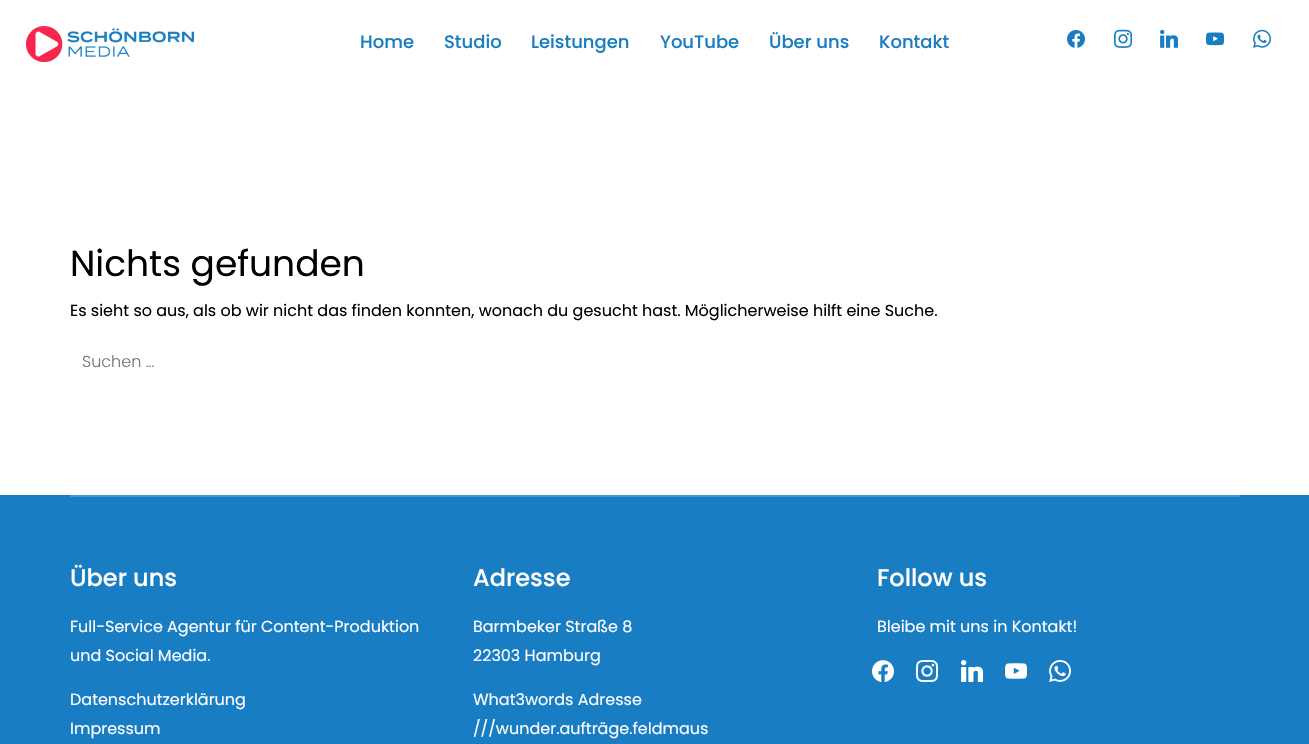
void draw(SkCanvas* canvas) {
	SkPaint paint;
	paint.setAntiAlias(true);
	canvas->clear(0xffffffff);
	canvas->drawImageRect(SkImages::DeferredFromEncodedData(SkData::MakeFromFileName("img1.png")), SkRect::MakeXYWH(26, 26, 168, 36), SkSamplingOptions());
	SkFont f1(fontMgr->matchFamilyStyle("Poppins", SkFontStyle(500, SkFontStyle::kNormal_Width, SkFontStyle::kUpright_Slant)), 18);
	f1.setSubpixel(true);
	paint.setColor(0xff187dc2);
	canvas->drawString("Home", 360, 48, f1, paint);
	canvas->drawString("Studio", 444, 48, f1, paint);
	canvas->drawString("Leistungen", 531, 48, f1, paint);
	canvas->drawString("YouTube", 660, 48, f1, paint);
	canvas->drawString("Über uns", 769, 48, f1, paint);
	canvas->drawString("Kontakt", 879, 48, f1, paint);
	canvas->drawImageRect(SkImages::DeferredFromEncodedData(SkData::MakeFromFileName("img2.png")), SkRect::MakeXYWH(1067, 30, 18, 18), SkSamplingOptions());
	canvas->drawImageRect(SkImages::DeferredFromEncodedData(SkData::MakeFromFileName("img3.png")), SkRect::MakeXYWH(1114, 29, 18, 19), SkSamplingOptions());
	canvas->drawImageRect(SkImages::DeferredFromEncodedData(SkData::MakeFromFileName("img4.png")), SkRect::MakeXYWH(1160, 29, 19, 19), SkSamplingOptions());
	canvas->drawImageRect(SkImages::DeferredFromEncodedData(SkData::MakeFromFileName("img5.png")), SkRect::MakeXYWH(1206, 32, 19, 14), SkSamplingOptions());
	canvas->drawImageRect(SkImages::DeferredFromEncodedData(SkData::MakeFromFileName("img6.png")), SkRect::MakeXYWH(1253, 29, 18, 19), SkSamplingOptions());
	SkFont f2(fontMgr->matchFamilyStyle("Poppins", SkFontStyle::Normal()), 36);
	f2.setSubpixel(true);
	paint.setColor(0xff000000);
	canvas->drawString("Nichts gefunden", 70, 276, f2, paint);
	SkFont f3(fontMgr->matchFamilyStyle("Poppins", SkFontStyle::Normal()), 16);
	f3.setSubpixel(true);
	canvas->drawString("Es sieht so aus, als ob wir nicht das finden konnten, wonach du gesucht hast. Möglicherweise hilft eine Suche.", 70, 316, f3, paint);
	SkFont f4(fontMgr->matchFamilyStyle("Poppins", SkFontStyle(300, SkFontStyle::kNormal_Width, SkFontStyle::kUpright_Slant)), 16);
	f4.setSubpixel(true);
	paint.setColor(0xff757575);
	canvas->drawString("Suchen …", 82, 367, f4, paint);
	paint.setColor(0xff187dc2);
	canvas->drawRect(SkRect::MakeXYWH(0, 495, 1309, 249), paint);
	paint.setColor(0xff4697ce);
	canvas->drawRect(SkRect::MakeXYWH(70, 495, 1170, 2), paint);
	SkFont f5(fontMgr->matchFamilyStyle("Poppins", SkFontStyle(500, SkFontStyle::kNormal_Width, SkFontStyle::kUpright_Slant)), 24);
	f5.setSubpixel(true);
	paint.setColor(0xffffffff);
	canvas->drawString("Über uns", 70, 586, f5, paint);
	canvas->drawString("Full-Service Agentur für Content-Produktion", 70, 632, f3, paint);
	canvas->drawString("und Social Media.", 70, 661, f3, paint);
	canvas->drawString("Datenschutzerklärung", 70, 705, f3, paint);
	canvas->drawString("Impressum", 70, 734, f3, paint);
	canvas->drawString("Adresse", 473, 586, f5, paint);
	canvas->drawString("Barmbeker Straße 8", 473, 632, f3, paint);
	canvas->drawString("22303 Hamburg", 473, 661, f3, paint);
	canvas->drawString("What3words Adresse", 473, 705, f3, paint);
	canvas->drawString("///wunder.aufträge.feldmaus", 473, 734, f3, paint);
	canvas->drawString("Follow us", 877, 586, f5, paint);
	canvas->drawString("Bleibe mit uns in Kontakt!", 877, 632, f3, paint);
	canvas->drawImageRect(SkImages::DeferredFromEncodedData(SkData::MakeFromFileName("img7.png")), SkRect::MakeXYWH(872, 660, 22, 22), SkSamplingOptions());
	canvas->drawImageRect(SkImages::DeferredFromEncodedData(SkData::MakeFromFileName("img8.png")), SkRect::MakeXYWH(916, 660, 22, 22), SkSamplingOptions());
	canvas->drawImageRect(SkImages::DeferredFromEncodedData(SkData::MakeFromFileName("img9.png")), SkRect::MakeXYWH(961, 660, 23, 22), SkSamplingOptions());
	canvas->drawImageRect(SkImages::DeferredFromEncodedData(SkData::MakeFromFileName("img10.png")), SkRect::MakeXYWH(1005, 663, 23, 16), SkSamplingOptions());
	canvas->drawImageRect(SkImages::DeferredFromEncodedData(SkData::MakeFromFileName("img11.png")), SkRect::MakeXYWH(1049, 660, 22, 22), SkSamplingOptions());
}
